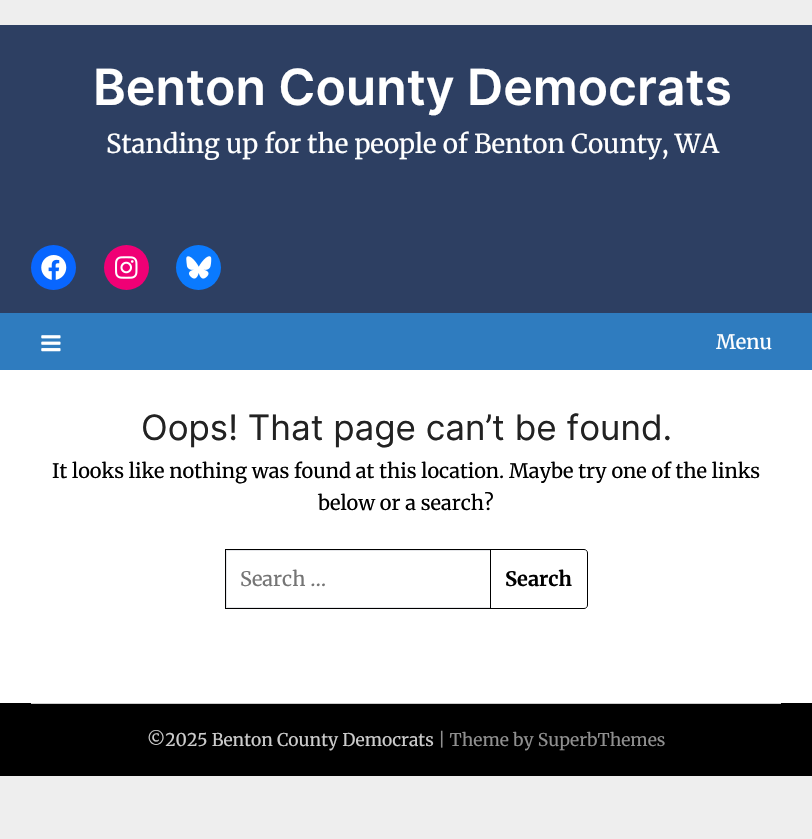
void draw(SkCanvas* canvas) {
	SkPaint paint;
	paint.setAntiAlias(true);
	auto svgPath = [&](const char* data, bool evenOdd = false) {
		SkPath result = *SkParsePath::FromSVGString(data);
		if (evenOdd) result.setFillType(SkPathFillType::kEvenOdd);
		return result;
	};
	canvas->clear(0xffeeeeee);
	paint.setColor(0xff2d3f62);
	canvas->drawRect(SkRect::MakeXYWH(0, 25, 812, 288), paint);
	SkFont f1(fontMgr->matchFamilyStyle("Inter", SkFontStyle(600, SkFontStyle::kNormal_Width, SkFontStyle::kUpright_Slant)), 50);
	f1.setSubpixel(true);
	paint.setColor(0xffffffff);
	canvas->drawString("Benton County Democrats", 93, 105, f1, paint);
	SkFont f2(fontMgr->matchFamilyStyle("Merriweather", SkFontStyle::Normal()), 26);
	f2.setSubpixel(true);
	canvas->drawString("Standing up for the people of Benton County, WA", 106, 153, f2, paint);
	paint.setColor(0xff0866ff);
	canvas->drawCircle(53.5, 267.5, 22.5, paint);
	canvas->drawImageRect(SkImages::DeferredFromEncodedData(SkData::MakeFromFileName("img1.png")), SkRect::MakeXYWH(41, 255, 26, 25), SkSamplingOptions());
	paint.setColor(0xfff00075);
	canvas->drawCircle(126.5, 267.5, 22.5, paint);
	canvas->drawImageRect(SkImages::DeferredFromEncodedData(SkData::MakeFromFileName("img2.png")), SkRect::MakeXYWH(115, 256, 23, 23), SkSamplingOptions());
	paint.setColor(0xff0a7aff);
	canvas->drawCircle(198.5, 267.5, 22.5, paint);
	canvas->drawImageRect(SkImages::DeferredFromEncodedData(SkData::MakeFromFileName("img3.png")), SkRect::MakeXYWH(186, 256, 26, 23), SkSamplingOptions());
	paint.setColor(0xff2f7cbf);
	canvas->drawRect(SkRect::MakeXYWH(0, 313, 812, 57), paint);
	canvas->drawImageRect(SkImages::DeferredFromEncodedData(SkData::MakeFromFileName("img4.png")), SkRect::MakeXYWH(41, 335, 20, 17), SkSamplingOptions());
	SkFont f3(fontMgr->matchFamilyStyle("Merriweather", SkFontStyle::Normal()), 20);
	f3.setSubpixel(true);
	paint.setColor(0xffffffff);
	canvas->drawString("Menu", 716, 349, f3, paint);
	canvas->drawRect(SkRect::MakeXYWH(0, 370, 812, 333), paint);
	SkFont f4(fontMgr->matchFamilyStyle("Inter", SkFontStyle::Normal()), 35);
	f4.setSubpixel(true);
	paint.setColor(0xff222222);
	canvas->drawString("Oops! That page can’t be found.", 141, 440, f4, paint);
	paint.setColor(0xff000000);
	canvas->drawString("It looks like nothing was found at this location. Maybe try one of the links", 52, 478, f3, paint);
	canvas->drawString("below or a search?", 318, 510, f3, paint);
	canvas->drawRect(SkRect::MakeXYWH(225, 549, 266, 1), paint);
	canvas->drawRect(SkRect::MakeXYWH(225, 608, 266, 1), paint);
	canvas->drawRect(SkRect::MakeXYWH(225, 549, 1, 60), paint);
	paint.setStroke(true);
	paint.setStrokeWidth(1);
	paint.setColor(0xffe5e6e9);
	canvas->drawRect(SkRect::MakeXYWH(226.5, 550.5, 264, 57), paint);
	paint.setStroke(false);
	paint.setColor(0xff757575);
	canvas->drawString("Search …", 240, 586, f3, paint);
	paint.setStroke(true);
	paint.setColor(0xff000000);
	canvas->drawPath(svgPath("M490.5 549.5H584C586 549.5 587.5 551 587.5 553V605C587.5 607 586 608.5 584 608.5H490.5Z"), paint);
	SkFont f5(fontMgr->matchFamilyStyle("Merriweather", SkFontStyle::Bold()), 20);
	f5.setSubpixel(true);
	paint.setStroke(false);
	canvas->drawString("Search", 505, 586, f5, paint);
	canvas->drawRect(SkRect::MakeXYWH(0, 703, 812, 73), paint);
	paint.setColor(0xffcccccc);
	canvas->drawRect(SkRect::MakeXYWH(31, 703, 750, 1), paint);
	SkFont f6(fontMgr->matchFamilyStyle("Merriweather", SkFontStyle::Normal()), 17.5);
	f6.setSubpixel(true);
	canvas->drawString("©2025 Benton County Democrats", 147, 746, f6, paint);
	paint.setColor(0xff8f8f8f);
	canvas->drawString("| Theme by SuperbThemes", 438, 746, f6, paint);
}
